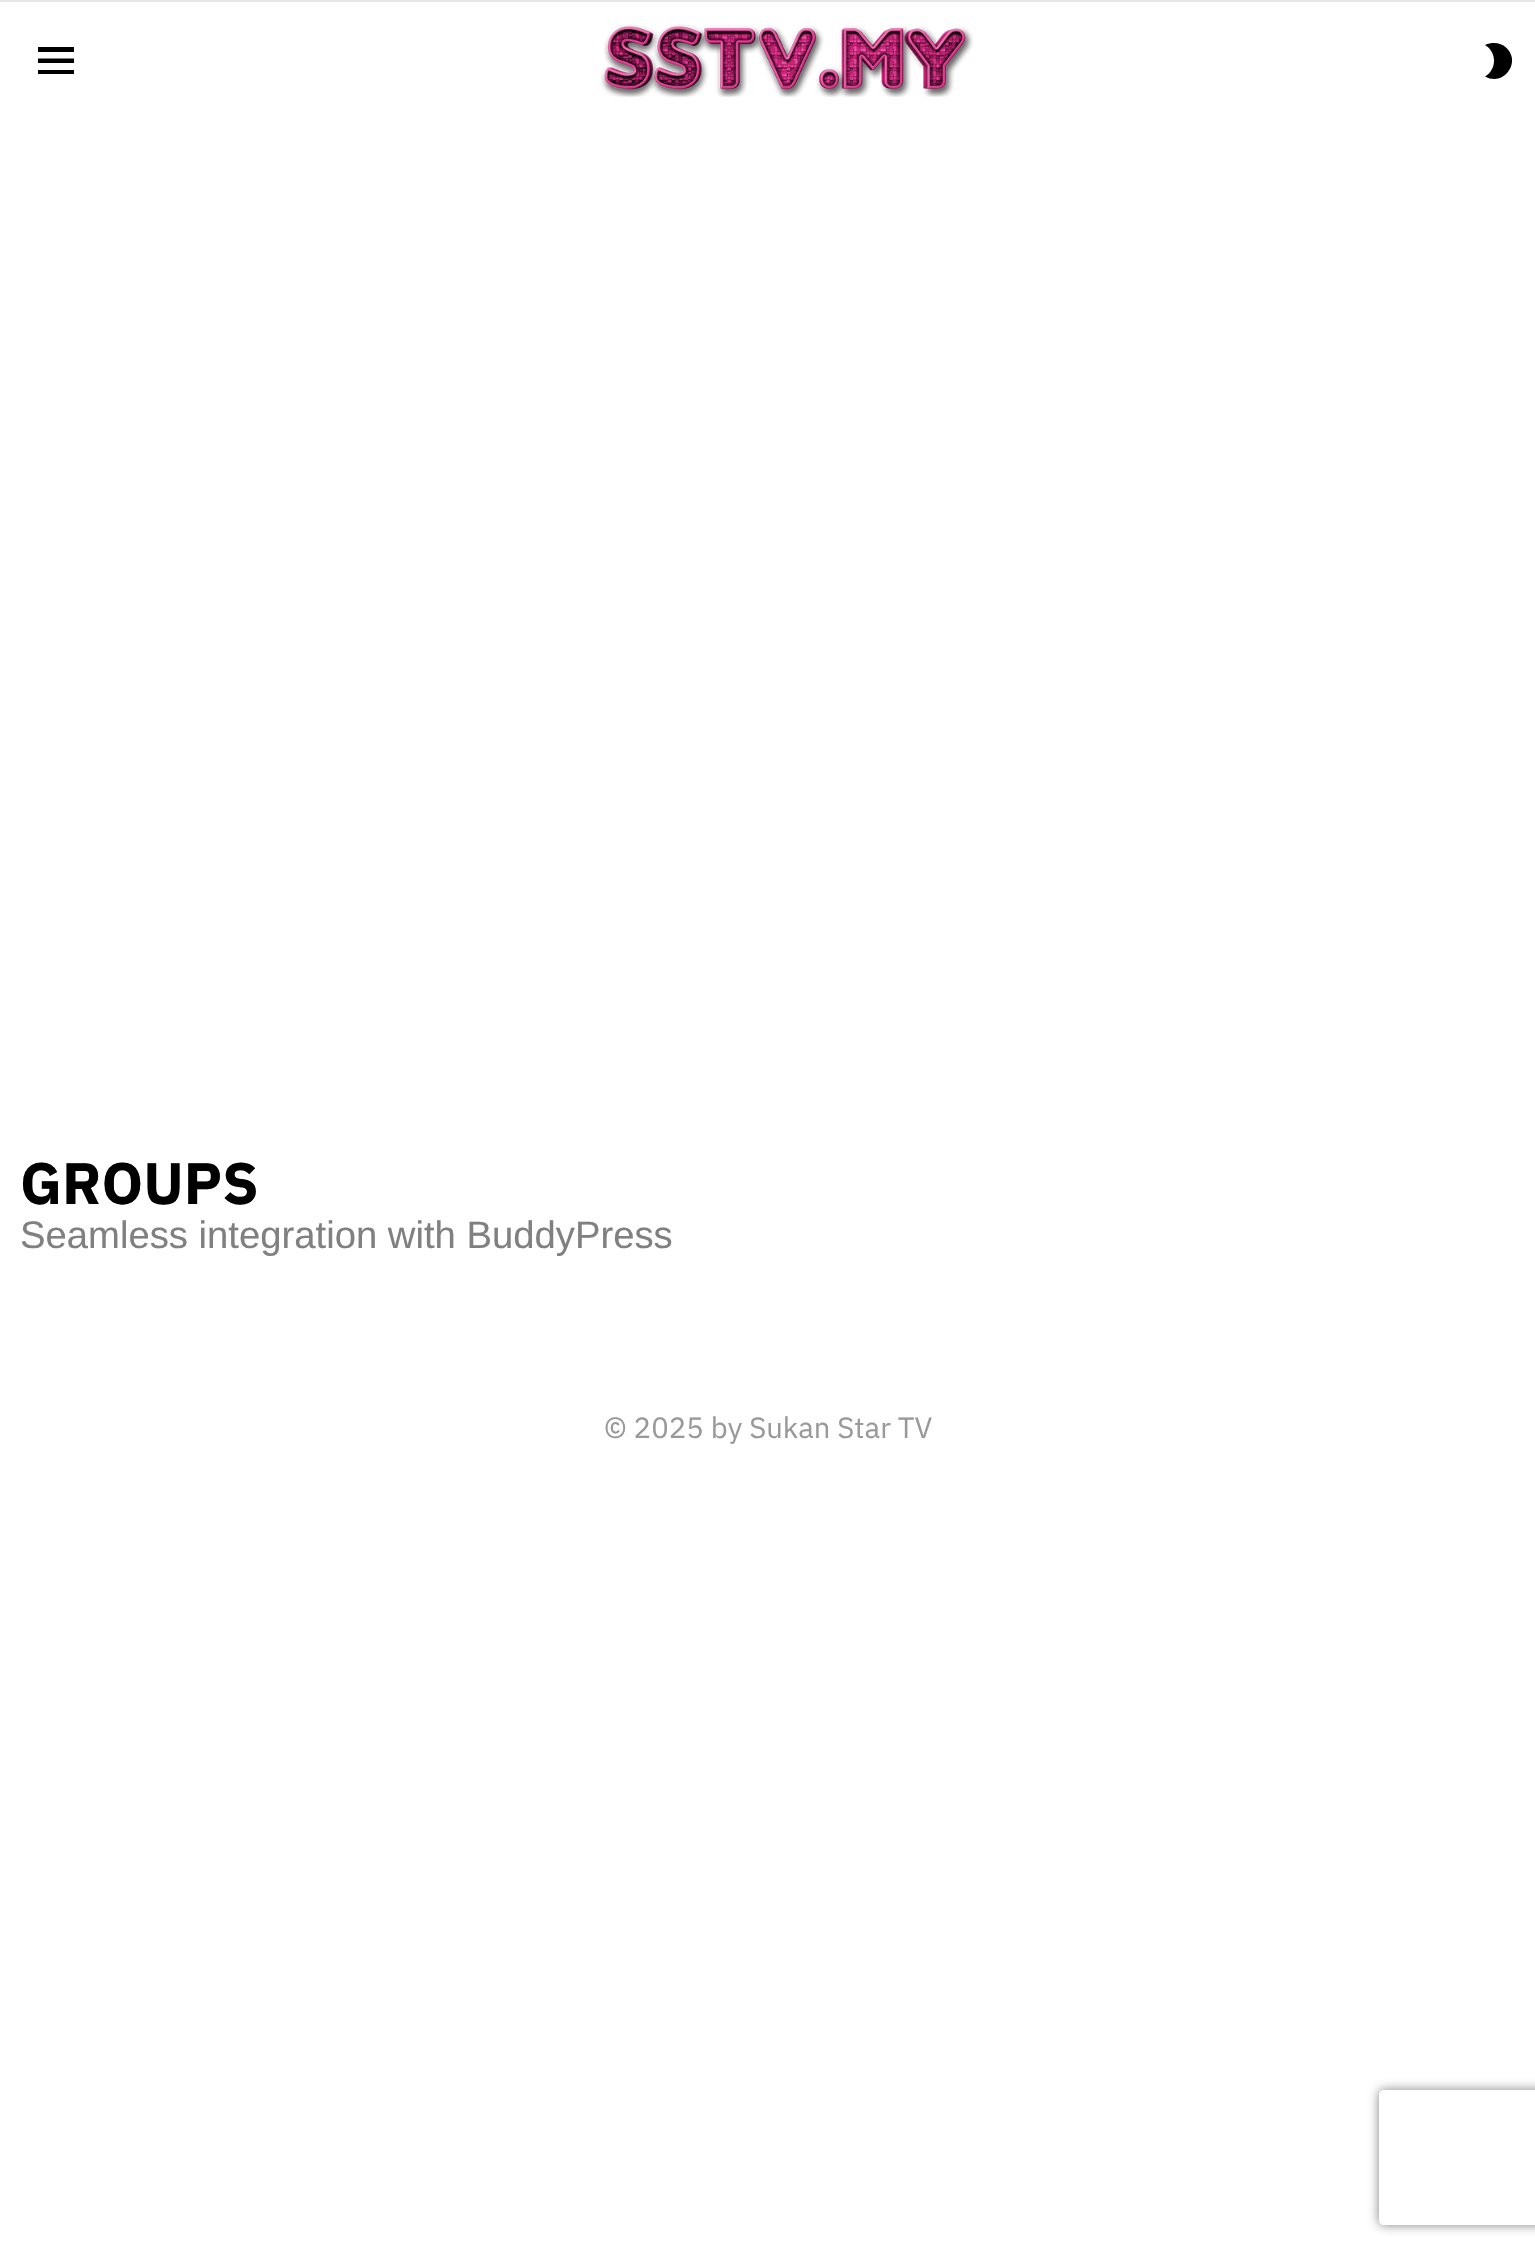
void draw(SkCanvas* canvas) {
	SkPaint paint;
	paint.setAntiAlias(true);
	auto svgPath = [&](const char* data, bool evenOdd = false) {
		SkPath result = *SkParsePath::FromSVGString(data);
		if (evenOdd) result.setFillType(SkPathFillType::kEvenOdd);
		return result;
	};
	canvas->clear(0xffffffff);
	paint.setColor(0xffe6e6e6);
	canvas->drawRect(SkRect::MakeXYWH(0, 0, 1535, 2), paint);
	paint.setColor(0xff000000);
	canvas->drawPath(svgPath("M38 47H74V52H38ZM38 58.5H74V63H38ZM38 70H74V74H38Z"), paint);
	canvas->drawImageRect(SkImages::DeferredFromEncodedData(SkData::MakeFromFileName("img1.png")), SkRect::MakeXYWH(601, 24, 372, 73), SkSamplingOptions());
	canvas->drawPath(svgPath("M1494 43C1491 43 1488 43.5 1485 45C1497 52 1497 69.5 1485 76.5C1503.5 87 1522 62 1506 47.5C1503 44.5 1498.5 43 1494 43Z"), paint);
	SkFont f1(fontMgr->matchFamilyStyle("IBM Plex Sans", SkFontStyle::Bold()), 58.5);
	f1.setSubpixel(true);
	canvas->drawString("GROUPS", 20, 1204, f1, paint);
	SkFont f2(fontMgr->matchFamilyStyle("Liberation Sans", SkFontStyle::Normal()), 38.25);
	f2.setSubpixel(true);
	paint.setColor(0xff808080);
	canvas->drawString("Seamless integration with BuddyPress", 20, 1248, f2, paint);
	SkFont f3(fontMgr->matchFamilyStyle("IBM Plex Sans", SkFontStyle::Normal()), 29.25);
	f3.setSubpixel(true);
	paint.setColor(0xff999999);
	canvas->drawString("© 2025 by Sukan Star TV", 604, 1438, f3, paint);
	canvas->save();
	canvas->clipPath(svgPath("M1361 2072H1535V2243H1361ZM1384 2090H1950C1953 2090 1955 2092 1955 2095V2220C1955 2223 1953 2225 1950 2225H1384C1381 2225 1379 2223 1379 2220V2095C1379 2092 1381 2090 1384 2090Z", true), true);
	paint.setColor(0xff808080);
	paint.setMaskFilter(SkMaskFilter::MakeBlur(kNormal_SkBlurStyle, 5.5));
	canvas->drawRoundRect(SkRect::MakeXYWH(1379, 2090, 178, 135), 5, 5, paint);
	paint.setMaskFilter(nullptr);
	canvas->restore();
}
